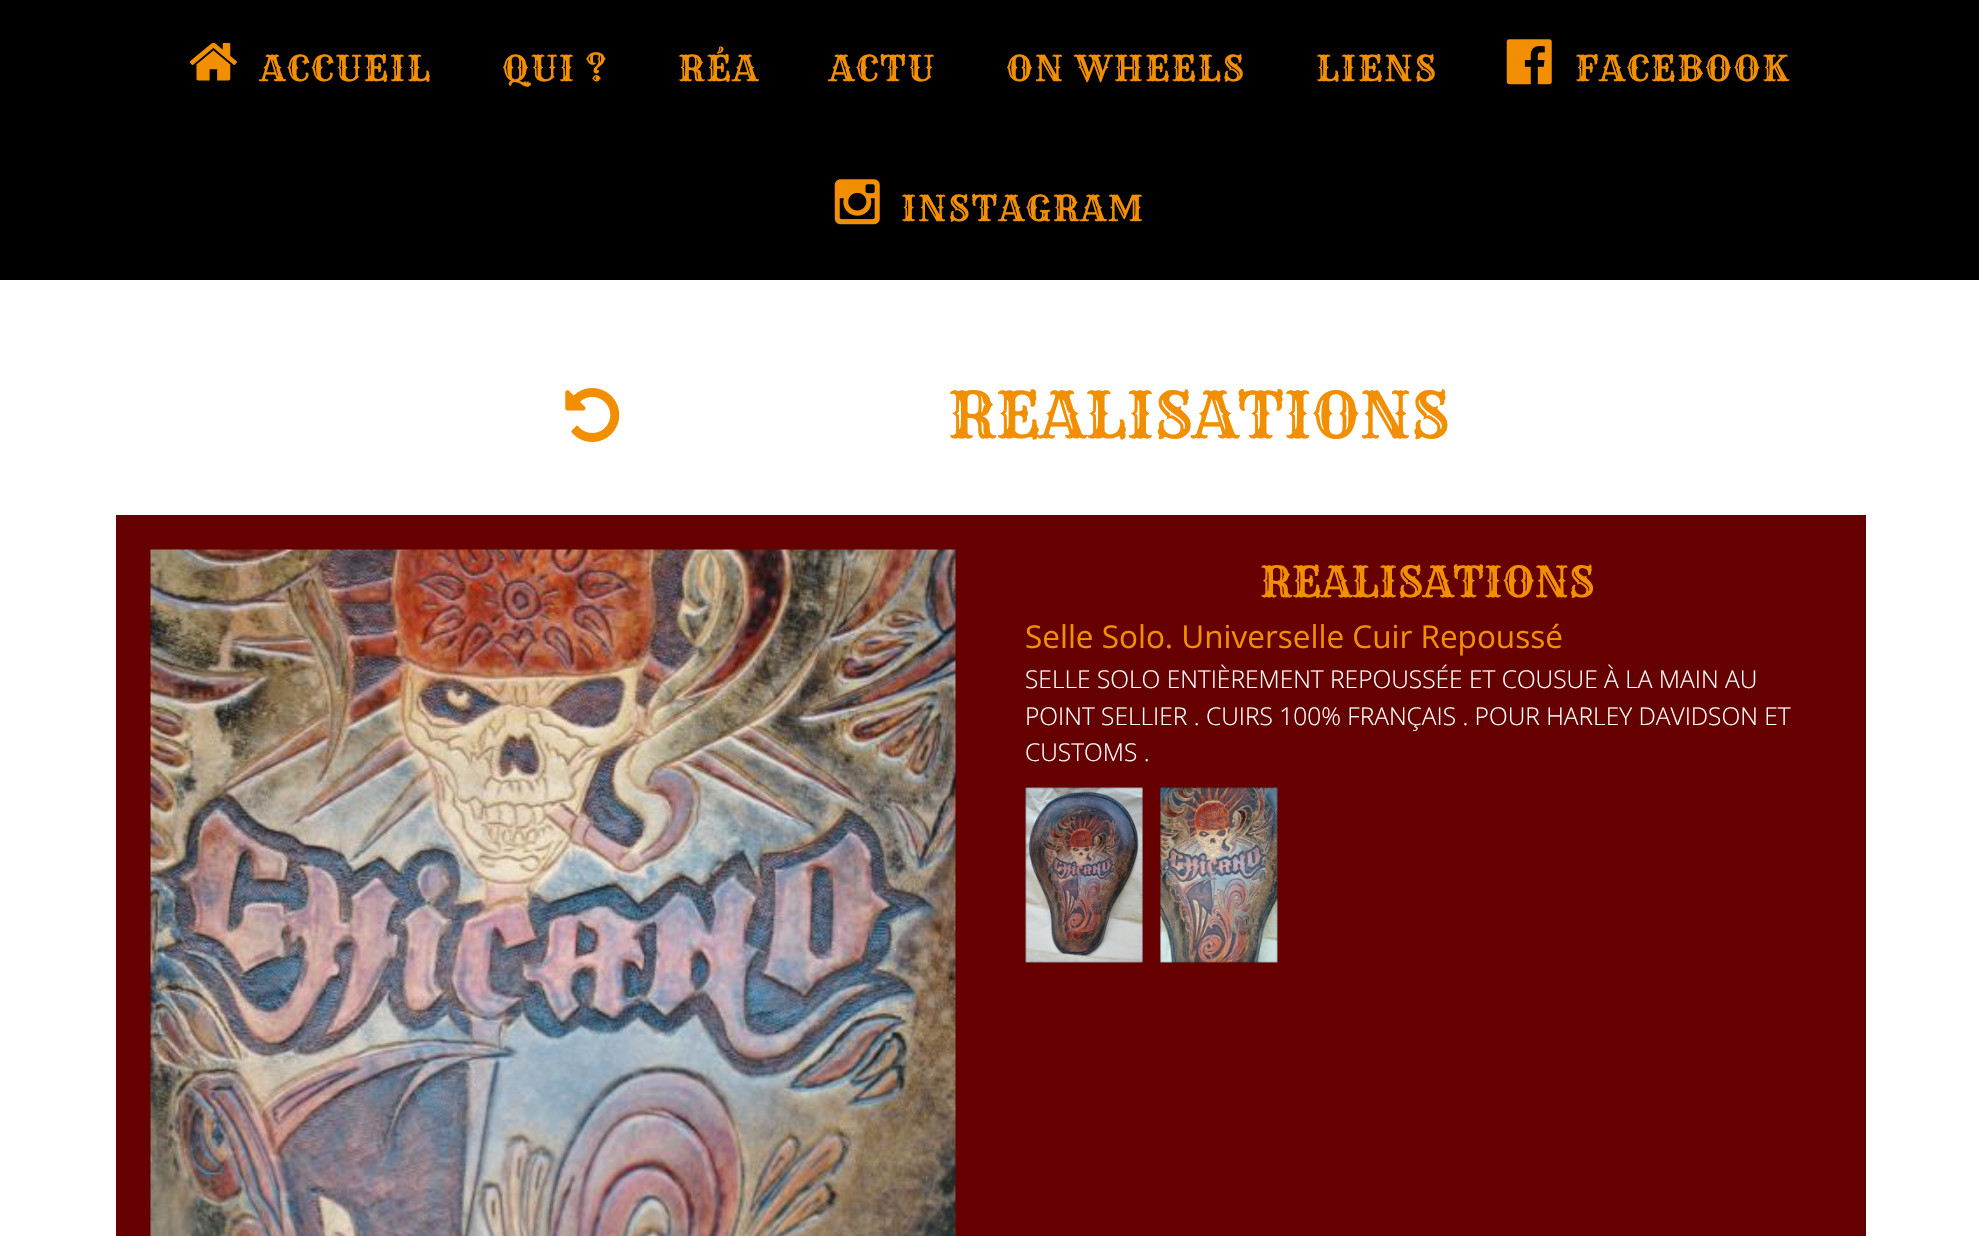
void draw(SkCanvas* canvas) {
	SkPaint paint;
	paint.setAntiAlias(true);
	auto spacedText = [&](const char* s, float x, float y, const SkFont& font, const SkPaint& ink, float letter, float word) {
		std::vector<SkGlyphID> glyphs(font.countText(s, strlen(s), SkTextEncoding::kUTF8));
		std::vector<float> xs(glyphs.size());
		font.textToGlyphs(s, strlen(s), SkTextEncoding::kUTF8, glyphs);
		font.getXPos(glyphs, xs, x);
		float extra = 0;
		for (size_t i = 0; i < glyphs.size(); i++) {
			xs[i] += extra;
			extra += letter + word * (glyphs[i] == font.unicharToGlyph(' '));
		}
		canvas->drawTextBlob(SkTextBlob::MakeFromPosHGlyphs(glyphs, xs, y, font), 0, 0, ink);
	};
	canvas->clear(0xffffffff);
	paint.setColor(0xff000000);
	canvas->drawRect(SkRect::MakeXYWH(0, 0, 1979, 280), paint);
	canvas->drawImageRect(SkImages::DeferredFromEncodedData(SkData::MakeFromFileName("img1.png")), SkRect::MakeXYWH(189, 42, 48, 39), SkSamplingOptions());
	SkFont f1(fontMgr->matchFamilyStyle("Rye", SkFontStyle::Normal()), 35);
	f1.setSubpixel(true);
	paint.setColor(0xfff18f00);
	spacedText("ACCUEIL", 260, 81, f1, paint, 1.75, 0);
	spacedText("QUI ?", 502, 81, f1, paint, 1.75, 0);
	spacedText("RÉA", 678, 81, f1, paint, 1.75, 0);
	spacedText("ACTU", 829, 81, f1, paint, 1.75, 0);
	spacedText("ON WHEELS", 1006, 81, f1, paint, 1.75, 0);
	spacedText("LIENS", 1316, 81, f1, paint, 1.75, 0);
	canvas->drawImageRect(SkImages::DeferredFromEncodedData(SkData::MakeFromFileName("img2.png")), SkRect::MakeXYWH(1506, 39, 46, 46), SkSamplingOptions());
	spacedText("FACEBOOK", 1575, 81, f1, paint, 1.75, 0);
	canvas->drawImageRect(SkImages::DeferredFromEncodedData(SkData::MakeFromFileName("img3.png")), SkRect::MakeXYWH(834, 179, 46, 46), SkSamplingOptions());
	spacedText("INSTAGRAM", 901, 221, f1, paint, 1.75, 0);
	canvas->drawImageRect(SkImages::DeferredFromEncodedData(SkData::MakeFromFileName("img4.png")), SkRect::MakeXYWH(565, 388, 55, 54), SkSamplingOptions());
	SkFont f2(fontMgr->matchFamilyStyle("Rye", SkFontStyle::Normal()), 63);
	f2.setSubpixel(true);
	canvas->drawString("REALISATIONS", 948, 438, f2, paint);
	paint.setColor(0xff660000);
	canvas->drawRect(SkRect::MakeXYWH(116, 515, 1750, 721), paint);
	canvas->drawImageRect(SkImages::DeferredFromEncodedData(SkData::MakeFromFileName("img5.png")), SkRect::MakeXYWH(150, 549, 806, 687), SkSamplingOptions());
	SkFont f3(fontMgr->matchFamilyStyle("Rye", SkFontStyle::Normal()), 42);
	f3.setSubpixel(true);
	paint.setColor(0xfff18f00);
	canvas->drawString("REALISATIONS", 1260, 597, f3, paint);
	SkFont f4(fontMgr->matchFamilyStyle("Open Sans", SkFontStyle::Normal()), 31.5);
	f4.setSubpixel(true);
	canvas->drawString("Selle Solo. Universelle Cuir Repoussé", 1025, 648, f4, paint);
	SkFont f5(fontMgr->matchFamilyStyle("Open Sans", SkFontStyle(300, SkFontStyle::kNormal_Width, SkFontStyle::kUpright_Slant)), 24.5);
	f5.setSubpixel(true);
	paint.setColor(0xffffffff);
	canvas->drawString("SELLE SOLO ENTIÈREMENT REPOUSSÉE ET COUSUE À LA MAIN AU", 1025, 688, f5, paint);
	canvas->drawString("POINT SELLIER . CUIRS 100% FRANÇAIS . POUR HARLEY DAVIDSON ET", 1025, 725, f5, paint);
	canvas->drawString("CUSTOMS .", 1025, 761, f5, paint);
	canvas->drawImageRect(SkImages::DeferredFromEncodedData(SkData::MakeFromFileName("img6.png")), SkRect::MakeXYWH(1025, 787, 118, 176), SkSamplingOptions());
	canvas->drawImageRect(SkImages::DeferredFromEncodedData(SkData::MakeFromFileName("img7.png")), SkRect::MakeXYWH(1160, 787, 118, 176), SkSamplingOptions());
}
